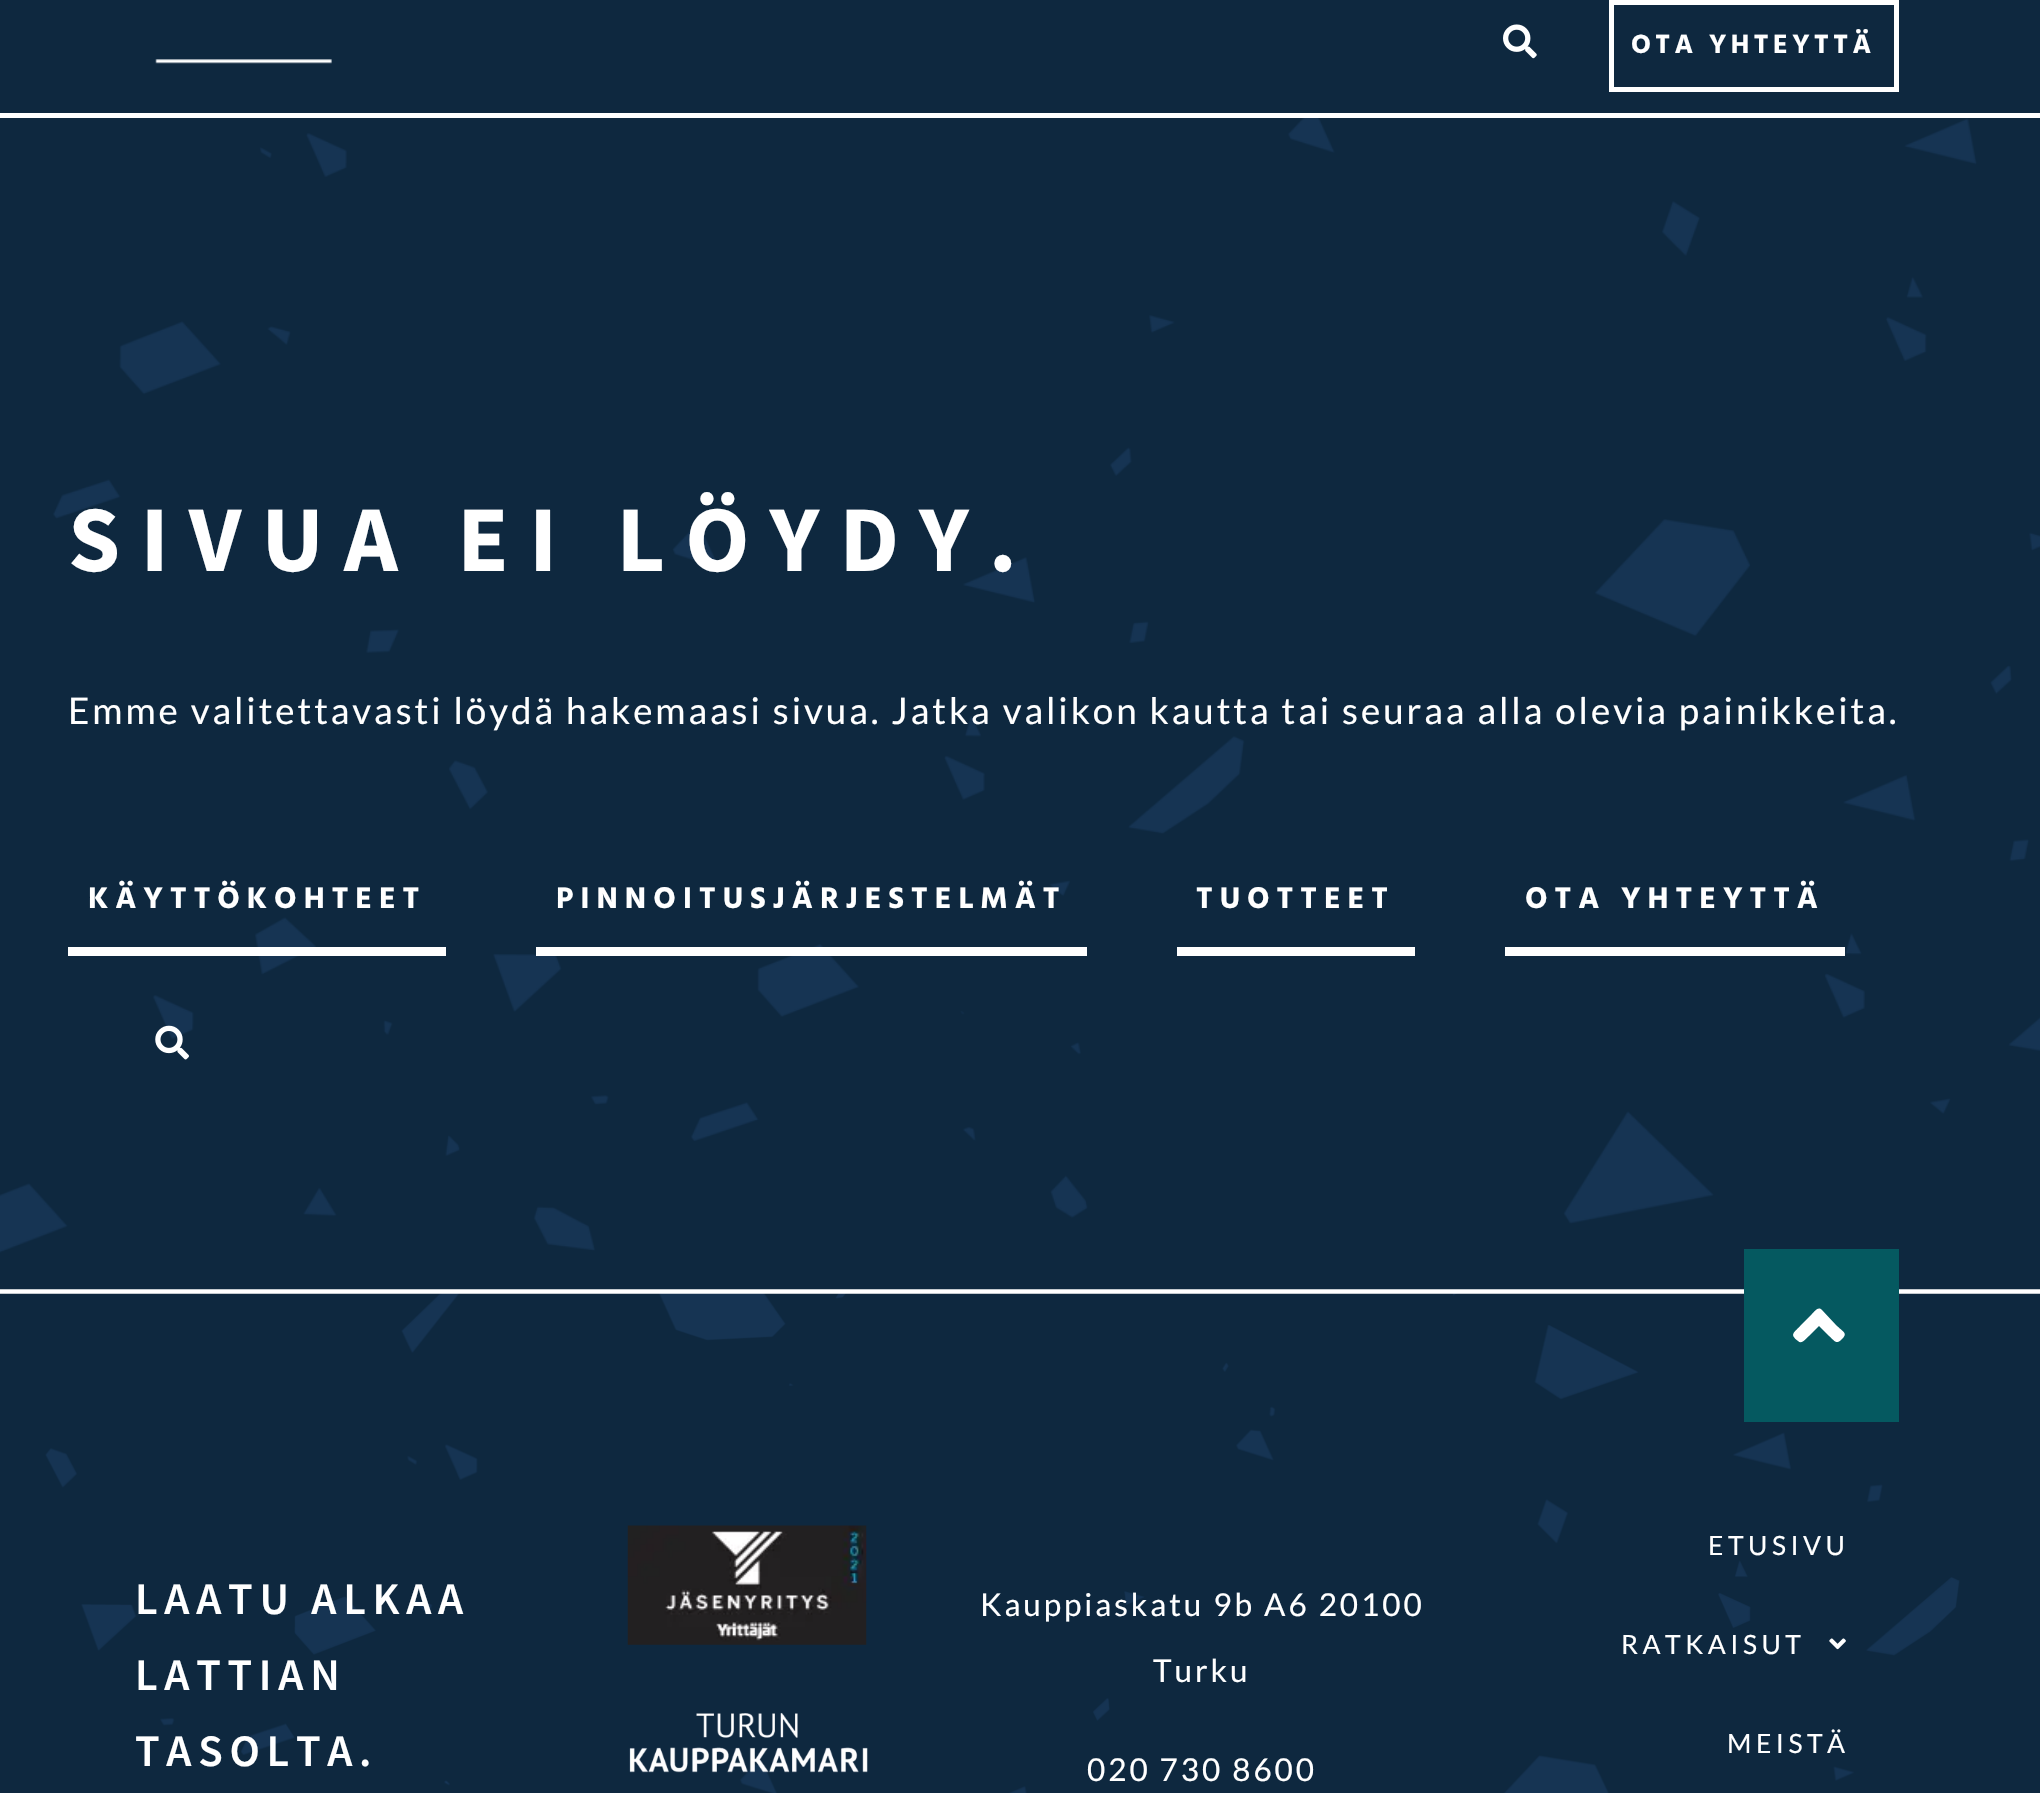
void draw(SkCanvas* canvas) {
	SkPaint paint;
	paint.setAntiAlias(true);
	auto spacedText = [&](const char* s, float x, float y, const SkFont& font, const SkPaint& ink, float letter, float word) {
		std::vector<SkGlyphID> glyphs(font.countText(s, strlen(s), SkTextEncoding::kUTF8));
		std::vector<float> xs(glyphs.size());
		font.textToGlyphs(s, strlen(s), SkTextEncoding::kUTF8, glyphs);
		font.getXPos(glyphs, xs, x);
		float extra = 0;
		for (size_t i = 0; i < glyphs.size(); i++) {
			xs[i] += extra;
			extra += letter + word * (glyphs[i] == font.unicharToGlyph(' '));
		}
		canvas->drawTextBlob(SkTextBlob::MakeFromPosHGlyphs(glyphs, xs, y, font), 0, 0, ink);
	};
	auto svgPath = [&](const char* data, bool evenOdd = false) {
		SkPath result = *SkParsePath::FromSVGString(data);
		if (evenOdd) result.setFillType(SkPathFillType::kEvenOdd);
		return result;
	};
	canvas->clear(0xffffffff);
	paint.setColor(0xff0e283f);
	canvas->drawRect(SkRect::MakeXYWH(0, 0, 2040, 113), paint);
	canvas->drawImageRect(SkImages::DeferredFromEncodedData(SkData::MakeFromFileName("img1.png")), SkRect::MakeXYWH(1503, 24, 34, 35), SkSamplingOptions());
	paint.setStroke(true);
	paint.setStrokeWidth(5);
	paint.setColor(0xffffffff);
	canvas->drawRect(SkRect::MakeXYWH(1611.5, 2.5, 285, 87), paint);
	SkFont f1(fontMgr->matchFamilyStyle("Hind", SkFontStyle::Bold()), 27);
	f1.setSubpixel(true);
	paint.setStroke(false);
	spacedText("OTA YHTEYTTÄ", 1631, 53, f1, paint, 4.5, 0);
	canvas->drawImageRect(SkImages::DeferredFromEncodedData(SkData::MakeFromFileName("img2.png")), SkRect::MakeXYWH(155, 59, 177, 5), SkSamplingOptions());
	canvas->drawImageRect(SkImages::DeferredFromEncodedData(SkData::MakeFromFileName("img3.png")), SkRect::MakeXYWH(0, 118, 2040, 1172), SkSamplingOptions());
	SkFont f2(fontMgr->matchFamilyStyle("Source Sans Pro", SkFontStyle::Bold()), 93.9);
	f2.setSubpixel(true);
	spacedText("SIVUA EI LÖYDY.", 68, 571, f2, paint, 20.25, 0);
	SkFont f3(fontMgr->matchFamilyStyle("Lato", SkFontStyle::Normal()), 36.75);
	f3.setSubpixel(true);
	spacedText("Emme valitettavasti löydä hakemaasi sivua. Jatka valikon kautta tai seuraa alla olevia painikkeita.", 68, 724, f3, paint, 2.93, 0);
	canvas->drawRect(SkRect::MakeXYWH(68, 947, 378, 9), paint);
	SkFont f4(fontMgr->matchFamilyStyle("Hind", SkFontStyle::Bold()), 30.6);
	f4.setSubpixel(true);
	spacedText("KÄYTTÖKOHTEET", 88, 908, f4, paint, 7, 0);
	canvas->drawRect(SkRect::MakeXYWH(536, 947, 551, 9), paint);
	spacedText("PINNOITUSJÄRJESTELMÄT", 556, 908, f4, paint, 7, 0);
	canvas->drawRect(SkRect::MakeXYWH(1177, 947, 238, 9), paint);
	spacedText("TUOTTEET", 1196, 908, f4, paint, 7, 0);
	canvas->drawRect(SkRect::MakeXYWH(1505, 947, 340, 9), paint);
	spacedText("OTA YHTEYTTÄ", 1525, 908, f4, paint, 7, 0);
	canvas->drawImageRect(SkImages::DeferredFromEncodedData(SkData::MakeFromFileName("img4.png")), SkRect::MakeXYWH(155, 1025, 34, 35), SkSamplingOptions());
	canvas->drawImageRect(SkImages::DeferredFromEncodedData(SkData::MakeFromFileName("img5.png")), SkRect::MakeXYWH(0, 1293, 2040, 500), SkSamplingOptions());
	paint.setColor(0xff055960);
	canvas->drawRect(SkRect::MakeXYWH(1744, 1249, 155, 173), paint);
	paint.setColor(0xffffffff);
	canvas->drawPath(svgPath("M1822 1310L1836 1325C1843 1332 1849 1333 1841 1340C1836 1345 1834 1340 1829 1336L1819 1326L1809 1336C1806 1338 1802 1345 1798 1341C1789 1334 1794 1333 1801 1325L1812 1314C1815 1311 1818 1306 1822 1310Z"), paint);
	SkFont f5(fontMgr->matchFamilyStyle("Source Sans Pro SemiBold", SkFontStyle(600, SkFontStyle::kNormal_Width, SkFontStyle::kUpright_Slant)), 45);
	f5.setSubpixel(true);
	spacedText("LAATU ALKAA", 135, 1614, f5, paint, 6.75, 0);
	spacedText("LATTIAN", 135, 1690, f5, paint, 6.75, 0);
	spacedText("TASOLTA.", 135, 1766, f5, paint, 6.75, 0);
	canvas->drawImageRect(SkImages::DeferredFromEncodedData(SkData::MakeFromFileName("img6.png")), SkRect::MakeXYWH(627, 1525, 240, 120), SkSamplingOptions());
	canvas->drawImageRect(SkImages::DeferredFromEncodedData(SkData::MakeFromFileName("img7.png")), SkRect::MakeXYWH(629, 1712, 239, 61), SkSamplingOptions());
	SkFont f6(fontMgr->matchFamilyStyle("Lato", SkFontStyle::Normal()), 31.5);
	f6.setSubpixel(true);
	spacedText("Kauppiaskatu 9b A6 20100", 980, 1616, f6, paint, 2.93, 0);
	spacedText("Turku", 1153, 1682, f6, paint, 2.93, 0);
	spacedText("020 730 8600", 1087, 1781, f6, paint, 2.93, 0);
	SkFont f7(fontMgr->matchFamilyStyle("Lato", SkFontStyle::Normal()), 26.5);
	f7.setSubpixel(true);
	spacedText("ETUSIVU", 1708, 1555, f7, paint, 4.5, 0);
	spacedText("RATKAISUT", 1621, 1654, f7, paint, 4.5, 0);
	canvas->drawImageRect(SkImages::DeferredFromEncodedData(SkData::MakeFromFileName("img8.png")), SkRect::MakeXYWH(1829, 1638, 17, 12), SkSamplingOptions());
	spacedText("MEISTÄ", 1727, 1753, f7, paint, 4.5, 0);
}
